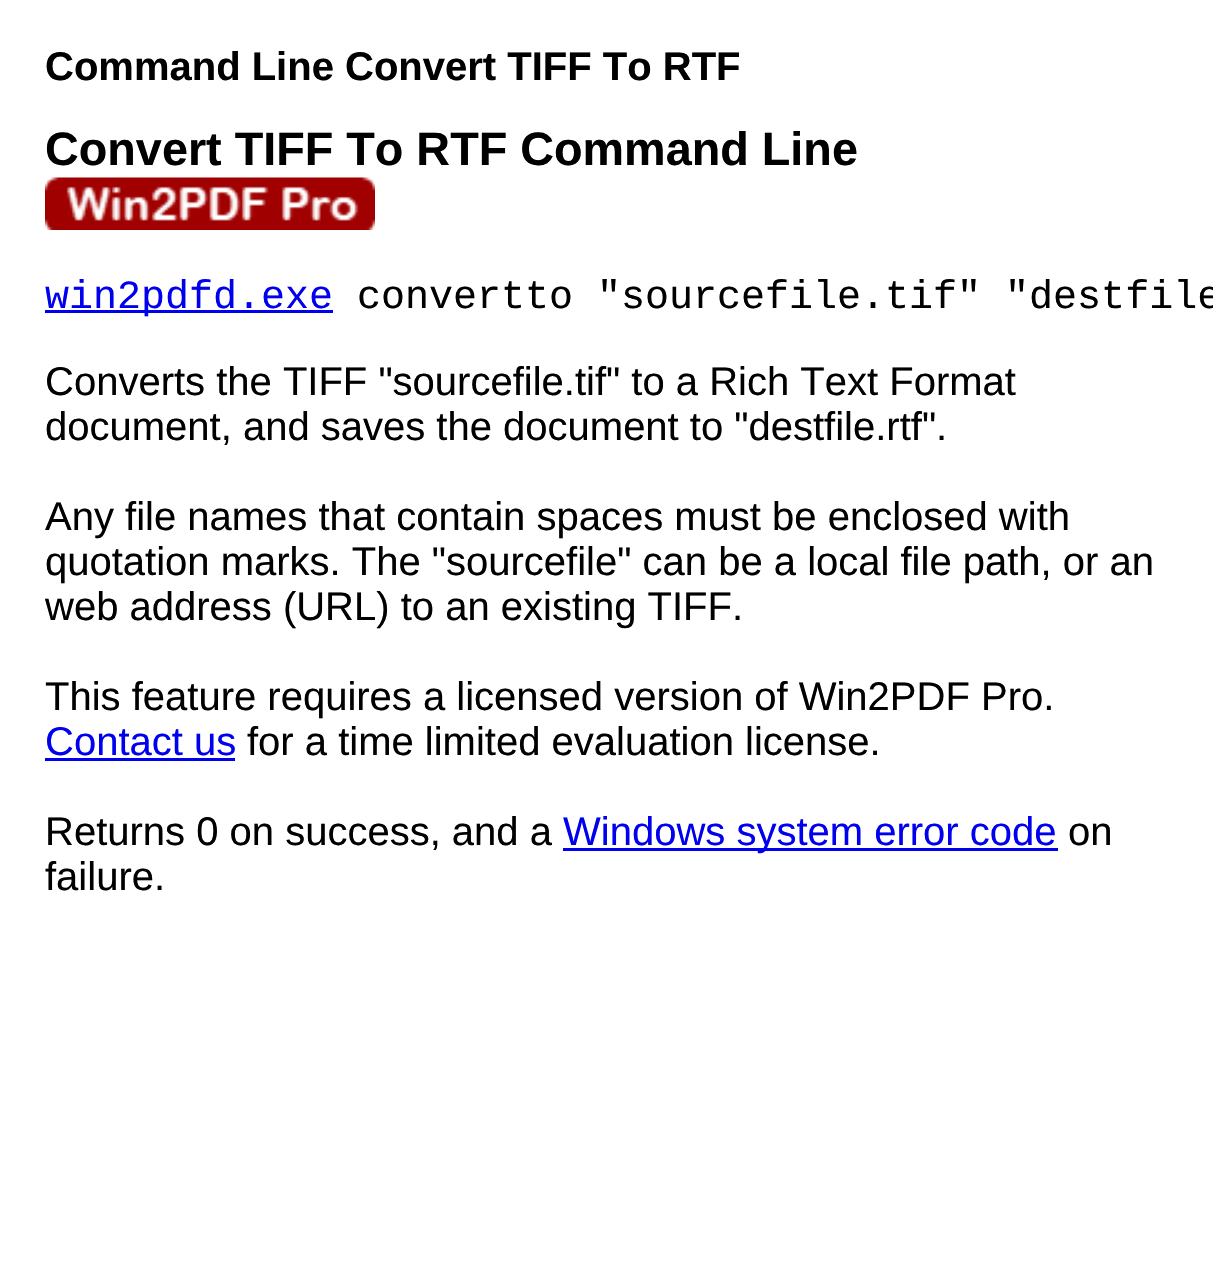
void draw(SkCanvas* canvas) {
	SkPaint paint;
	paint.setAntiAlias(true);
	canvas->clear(0xffffffff);
	SkFont f1(fontMgr->matchFamilyStyle("Liberation Sans", SkFontStyle::Bold()), 40);
	f1.setSubpixel(true);
	paint.setColor(0xff000000);
	canvas->drawString("Command Line Convert TIFF To RTF", 45, 80, f1, paint);
	SkFont f2(fontMgr->matchFamilyStyle("Liberation Sans", SkFontStyle::Bold()), 46.75);
	f2.setSubpixel(true);
	canvas->drawString("Convert TIFF To RTF Command Line", 45, 165, f2, paint);
	canvas->drawImageRect(SkImages::DeferredFromEncodedData(SkData::MakeFromFileName("img1.png")), SkRect::MakeXYWH(45, 177, 330, 53), SkSamplingOptions());
	paint.setColor(0xff0000ee);
	canvas->drawRect(SkRect::MakeXYWH(45, 310, 288, 3), paint);
	SkFont f3(fontMgr->matchFamilyStyle("Liberation Mono", SkFontStyle::Normal()), 40);
	f3.setSubpixel(true);
	canvas->drawString("win2pdfd.exe", 45, 308, f3, paint);
	paint.setColor(0xff000000);
	canvas->drawString("convertto \"sourcefile.tif\" \"destfile", 357, 308, f3, paint);
	SkFont f4(fontMgr->matchFamilyStyle("Liberation Sans", SkFontStyle::Normal()), 40);
	f4.setSubpixel(true);
	canvas->drawString("Converts the TIFF \"sourcefile.tif\" to a Rich Text Format", 45, 395, f4, paint);
	canvas->drawString("document, and saves the document to \"destfile.rtf\".", 45, 440, f4, paint);
	canvas->drawString("Any file names that contain spaces must be enclosed with", 45, 530, f4, paint);
	canvas->drawString("quotation marks. The \"sourcefile\" can be a local file path, or an", 45, 575, f4, paint);
	canvas->drawString("web address (URL) to an existing TIFF.", 45, 620, f4, paint);
	canvas->drawString("This feature requires a licensed version of Win2PDF Pro.", 45, 710, f4, paint);
	paint.setColor(0xff0000ee);
	canvas->drawString("Contact us", 45, 755, f4, paint);
	canvas->drawRect(SkRect::MakeXYWH(45, 758, 190, 3), paint);
	paint.setColor(0xff000000);
	canvas->drawString("for a time limited evaluation license.", 247, 755, f4, paint);
	canvas->drawString("Returns 0 on success, and a", 45, 845, f4, paint);
	paint.setColor(0xff0000ee);
	canvas->drawRect(SkRect::MakeXYWH(563, 848, 495, 3), paint);
	canvas->drawString("Windows system error code", 563, 845, f4, paint);
	paint.setColor(0xff000000);
	canvas->drawString("on", 1068, 845, f4, paint);
	canvas->drawString("failure.", 45, 890, f4, paint);
}
